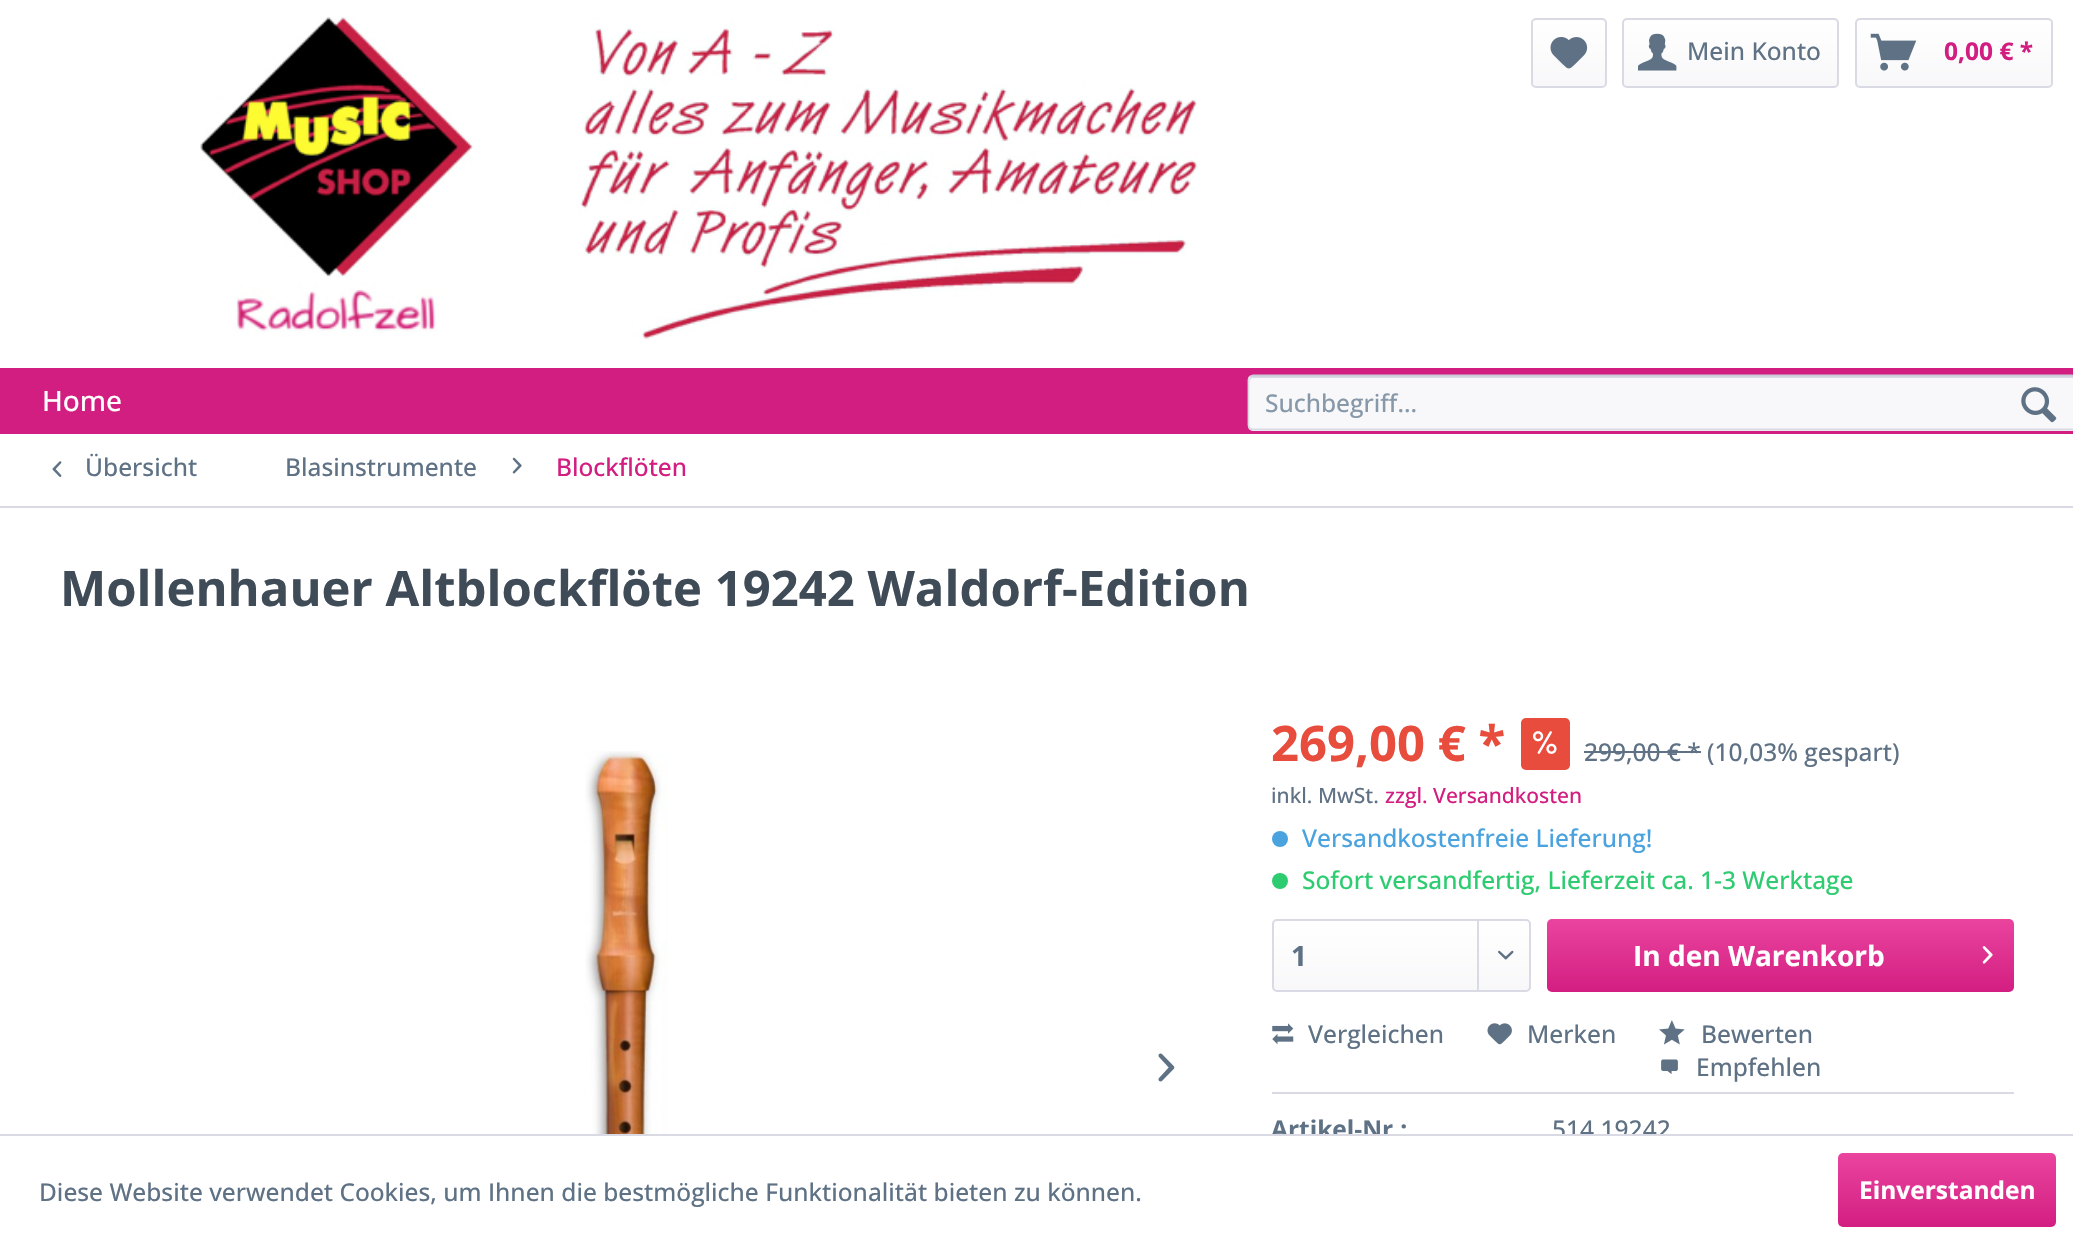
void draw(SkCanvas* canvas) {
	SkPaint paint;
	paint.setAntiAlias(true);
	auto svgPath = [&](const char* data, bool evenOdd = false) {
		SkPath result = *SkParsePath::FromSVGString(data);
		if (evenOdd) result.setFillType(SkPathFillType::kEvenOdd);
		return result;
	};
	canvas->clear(0xffffffff);
	canvas->drawImageRect(SkImages::DeferredFromEncodedData(SkData::MakeFromFileName("img1.png")), SkRect::MakeXYWH(200, 17, 999, 322), SkSamplingOptions());
	{
		const SkColor colors[] = {0xffffffff, 0xfff8f8fa};
		const float stops[] = {0, 1};
		const SkPoint ends[] = {{1569, 19}, {1569, 86}};
		paint.setShader(SkGradientShader::MakeLinear(ends, colors, stops, 2, SkTileMode::kClamp));
		paint.setAlpha(255);
	}
	canvas->drawRoundRect(SkRect::MakeXYWH(1533, 19, 72, 67), 4, 4, paint);
	paint.setStroke(true);
	paint.setStrokeWidth(2);
	paint.setShader(nullptr);
	paint.setColor(0xffdadae5);
	canvas->drawRoundRect(SkRect::MakeXYWH(1532, 19, 74, 68), 4, 4, paint);
	canvas->drawImageRect(SkImages::DeferredFromEncodedData(SkData::MakeFromFileName("img2.png")), SkRect::MakeXYWH(1550, 37, 38, 32), SkSamplingOptions());
	paint.setStroke(false);
	{
		const SkColor colors[] = {0xffffffff, 0xfff8f8fa};
		const float stops[] = {0, 1};
		const SkPoint ends[] = {{1731, 19}, {1731, 86}};
		paint.setShader(SkGradientShader::MakeLinear(ends, colors, stops, 2, SkTileMode::kClamp));
		paint.setAlpha(255);
	}
	canvas->drawRoundRect(SkRect::MakeXYWH(1624, 19, 214, 67), 4, 4, paint);
	paint.setStroke(true);
	paint.setShader(nullptr);
	paint.setColor(0xffdadae5);
	canvas->drawRoundRect(SkRect::MakeXYWH(1623, 19, 215, 68), 4, 4, paint);
	canvas->drawImageRect(SkImages::DeferredFromEncodedData(SkData::MakeFromFileName("img3.png")), SkRect::MakeXYWH(1638, 33, 39, 38), SkSamplingOptions());
	SkFont f1(fontMgr->matchFamilyStyle("Open Sans", SkFontStyle(500, SkFontStyle::kNormal_Width, SkFontStyle::kUpright_Slant)), 24.5);
	f1.setSubpixel(true);
	paint.setStroke(false);
	paint.setColor(0xff5f7285);
	canvas->drawString("Mein Konto", 1687, 60, f1, paint);
	{
		const SkColor colors[] = {0xffffffff, 0xfff8f8fa};
		const float stops[] = {0, 1};
		const SkPoint ends[] = {{1954, 19}, {1954, 86}};
		paint.setShader(SkGradientShader::MakeLinear(ends, colors, stops, 2, SkTileMode::kClamp));
		paint.setAlpha(255);
	}
	canvas->drawRoundRect(SkRect::MakeXYWH(1857, 19, 194, 67), 4, 4, paint);
	paint.setStroke(true);
	paint.setShader(nullptr);
	paint.setColor(0xffdadae5);
	canvas->drawRoundRect(SkRect::MakeXYWH(1856, 19, 196, 68), 4, 4, paint);
	canvas->drawImageRect(SkImages::DeferredFromEncodedData(SkData::MakeFromFileName("img4.png")), SkRect::MakeXYWH(1870, 33, 47, 38), SkSamplingOptions());
	SkFont f2(fontMgr->matchFamilyStyle("Open Sans", SkFontStyle::Bold()), 24.5);
	f2.setSubpixel(true);
	paint.setStroke(false);
	paint.setColor(0xffd31e81);
	canvas->drawString("0,00 € *", 1944, 60, f2, paint);
	canvas->drawRect(SkRect::MakeXYWH(0, 368, 2073, 66), paint);
	SkFont f3(fontMgr->matchFamilyStyle("Open Sans", SkFontStyle(500, SkFontStyle::kNormal_Width, SkFontStyle::kUpright_Slant)), 28);
	f3.setSubpixel(true);
	paint.setColor(0xffffffff);
	canvas->drawString("Home", 42, 411, f3, paint);
	paint.setColor(0xfff8f8fa);
	canvas->drawRoundRect(SkRect::MakeXYWH(1248, 375, 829, 56), 5, 5, paint);
	paint.setColor(0xffdadae5);
	canvas->drawPath(svgPath("M1253 378H2072C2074 378 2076 380 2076 382V380C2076 378 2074 376 2072 376H1254C1252 376 1250 378 1250 380V382C1250 380 1251 378 1253 378Z"), paint);
	paint.setStroke(true);
	paint.setStrokeWidth(1.8);
	paint.setColor(0xffcbcbdb);
	canvas->drawPath(svgPath("M1250 376.5L1253 375.5H2072L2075 376.5"), paint);
	paint.setColor(0xffdadae5);
	canvas->drawPath(svgPath("M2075 376.5C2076 377.5 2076.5 378.5 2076.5 380V425C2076.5 426.5 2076 427.5 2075 428.5C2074.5 429 2073 429.5 2072 429.5H1253C1252 429.5 1250.5 429 1250 428.5C1249 427.5 1248.5 426.5 1248.5 425V380C1248.5 378.5 1249 377.5 1250 376.5"), paint);
	paint.setStroke(false);
	paint.setColor(0xff8798a9);
	canvas->drawString("Suchbegriff...", 1265, 412, f1, paint);
	canvas->drawImageRect(SkImages::DeferredFromEncodedData(SkData::MakeFromFileName("img5.png")), SkRect::MakeXYWH(2021, 387, 36, 36), SkSamplingOptions());
	paint.setColor(0xffdadae5);
	canvas->drawRect(SkRect::MakeXYWH(0, 506, 2073, 2), paint);
	canvas->drawImageRect(SkImages::DeferredFromEncodedData(SkData::MakeFromFileName("img6.png")), SkRect::MakeXYWH(52, 461, 10, 16), SkSamplingOptions());
	paint.setColor(0xff5f7285);
	canvas->drawString("Übersicht", 85, 476, f1, paint);
	canvas->drawString("Blasinstrumente", 285, 476, f1, paint);
	canvas->drawImageRect(SkImages::DeferredFromEncodedData(SkData::MakeFromFileName("img7.png")), SkRect::MakeXYWH(512, 457, 10, 17), SkSamplingOptions());
	paint.setColor(0xffd31e81);
	canvas->drawString("Blockflöten", 556, 476, f1, paint);
	SkFont f4(fontMgr->matchFamilyStyle("Open Sans", SkFontStyle::Bold()), 49);
	f4.setSubpixel(true);
	paint.setColor(0xff3f4c58);
	canvas->drawString("Mollenhauer Altblockflöte 19242 Waldorf-Edition", 60, 606, f4, paint);
	canvas->drawImageRect(SkImages::DeferredFromEncodedData(SkData::MakeFromFileName("img8.png")), SkRect::MakeXYWH(585, 751, 83, 383), SkSamplingOptions());
	canvas->drawImageRect(SkImages::DeferredFromEncodedData(SkData::MakeFromFileName("img9.png")), SkRect::MakeXYWH(1158, 1053, 17, 29), SkSamplingOptions());
	paint.setColor(0xffe74c3c);
	canvas->drawString("269,00 € *", 1271, 761, f4, paint);
	canvas->drawRoundRect(SkRect::MakeXYWH(1521, 718, 49, 52), 5, 5, paint);
	canvas->drawImageRect(SkImages::DeferredFromEncodedData(SkData::MakeFromFileName("img10.png")), SkRect::MakeXYWH(1533, 731, 24, 23), SkSamplingOptions());
	paint.setColor(0xff5f7285);
	canvas->drawString("299,00 € * (10,03% gespart)", 1584, 761, f1, paint);
	canvas->drawRect(SkRect::MakeXYWH(1584, 751, 117, 2), paint);
	SkFont f5(fontMgr->matchFamilyStyle("Open Sans", SkFontStyle(500, SkFontStyle::kNormal_Width, SkFontStyle::kUpright_Slant)), 21);
	f5.setSubpixel(true);
	canvas->drawString("inkl. MwSt.", 1271, 803, f5, paint);
	paint.setColor(0xffd31e81);
	canvas->drawString("zzgl. Versandkosten", 1385, 803, f5, paint);
	paint.setColor(0xff4aa3df);
	canvas->drawCircle(1280, 839, 8, paint);
	canvas->drawString("Versandkostenfreie Lieferung!", 1302, 847, f1, paint);
	paint.setColor(0xff2ecc71);
	canvas->drawCircle(1280, 881, 8, paint);
	canvas->drawString("Sofort versandfertig, Lieferzeit ca. 1-3 Werktage", 1302, 889, f1, paint);
	{
		const SkColor colors[] = {0xffffffff, 0xfff8f8fa};
		const float stops[] = {0, 1};
		const SkPoint ends[] = {{1402, 921}, {1402, 991}};
		paint.setShader(SkGradientShader::MakeLinear(ends, colors, stops, 2, SkTileMode::kClamp));
		paint.setAlpha(255);
	}
	canvas->drawRoundRect(SkRect::MakeXYWH(1274, 921, 256, 70), 4, 4, paint);
	paint.setStroke(true);
	paint.setStrokeWidth(2);
	paint.setShader(nullptr);
	paint.setColor(0xffdadae5);
	canvas->drawRoundRect(SkRect::MakeXYWH(1273, 920, 257, 71), 4, 4, paint);
	SkFont f6(fontMgr->matchFamilyStyle("Open Sans", SkFontStyle::Bold()), 28);
	f6.setSubpixel(true);
	paint.setStroke(false);
	paint.setColor(0xff5f7285);
	canvas->drawString("1", 1291, 966, f6, paint);
	paint.setColor(0xffdadae5);
	canvas->drawRect(SkRect::MakeXYWH(1477, 921, 2, 70), paint);
	canvas->drawImageRect(SkImages::DeferredFromEncodedData(SkData::MakeFromFileName("img11.png")), SkRect::MakeXYWH(1498, 950, 16, 10), SkSamplingOptions());
	{
		const SkColor colors[] = {0xffea449f, 0xffd31e81};
		const float stops[] = {0, 1};
		const SkPoint ends[] = {{1781, 919}, {1781, 992}};
		paint.setShader(SkGradientShader::MakeLinear(ends, colors, stops, 2, SkTileMode::kClamp));
		paint.setAlpha(255);
	}
	canvas->drawRoundRect(SkRect::MakeXYWH(1547, 919, 467, 73), 5, 5, paint);
	paint.setShader(nullptr);
	paint.setColor(0xffffffff);
	canvas->drawString("In den Warenkorb", 1633, 966, f6, paint);
	canvas->drawImageRect(SkImages::DeferredFromEncodedData(SkData::MakeFromFileName("img12.png")), SkRect::MakeXYWH(1982, 946, 11, 18), SkSamplingOptions());
	paint.setColor(0xffdadae5);
	canvas->drawRect(SkRect::MakeXYWH(1272, 1092, 742, 2), paint);
	canvas->drawImageRect(SkImages::DeferredFromEncodedData(SkData::MakeFromFileName("img13.png")), SkRect::MakeXYWH(1272, 1023, 22, 22), SkSamplingOptions());
	paint.setColor(0xff5f7285);
	canvas->drawString("Vergleichen", 1308, 1043, f1, paint);
	canvas->drawImageRect(SkImages::DeferredFromEncodedData(SkData::MakeFromFileName("img14.png")), SkRect::MakeXYWH(1487, 1023, 25, 22), SkSamplingOptions());
	canvas->drawString("Merken", 1527, 1043, f1, paint);
	canvas->drawImageRect(SkImages::DeferredFromEncodedData(SkData::MakeFromFileName("img15.png")), SkRect::MakeXYWH(1659, 1020, 26, 25), SkSamplingOptions());
	canvas->drawString("Bewerten", 1701, 1043, f1, paint);
	canvas->drawImageRect(SkImages::DeferredFromEncodedData(SkData::MakeFromFileName("img16.png")), SkRect::MakeXYWH(1661, 1059, 17, 15), SkSamplingOptions());
	canvas->drawString("Empfehlen", 1696, 1076, f1, paint);
	canvas->drawString("Artikel-Nr.:", 1271, 1138, f2, paint);
	canvas->drawString("514.19242", 1552, 1138, f1, paint);
	paint.setColor(0xffffffff);
	canvas->drawRect(SkRect::MakeXYWH(1271, 1136, 399, 3), paint);
	paint.setColor(0xffdadae5);
	canvas->drawRect(SkRect::MakeXYWH(0, 1134, 2073, 2), paint);
	paint.setColor(0xff5f7285);
	canvas->drawString("Diese Website verwendet Cookies, um Ihnen die bestmögliche Funktionalität bieten zu können.", 39, 1201, f1, paint);
	{
		const SkColor colors[] = {0xffea449f, 0xffd31e81};
		const float stops[] = {0, 1};
		const SkPoint ends[] = {{1947, 1153}, {1947, 1227}};
		paint.setShader(SkGradientShader::MakeLinear(ends, colors, stops, 2, SkTileMode::kClamp));
		paint.setAlpha(255);
	}
	canvas->drawRoundRect(SkRect::MakeXYWH(1838, 1153, 218, 74), 5, 5, paint);
	paint.setShader(nullptr);
	paint.setColor(0xffffffff);
	canvas->drawString("Einverstanden", 1859, 1199, f2, paint);
}
